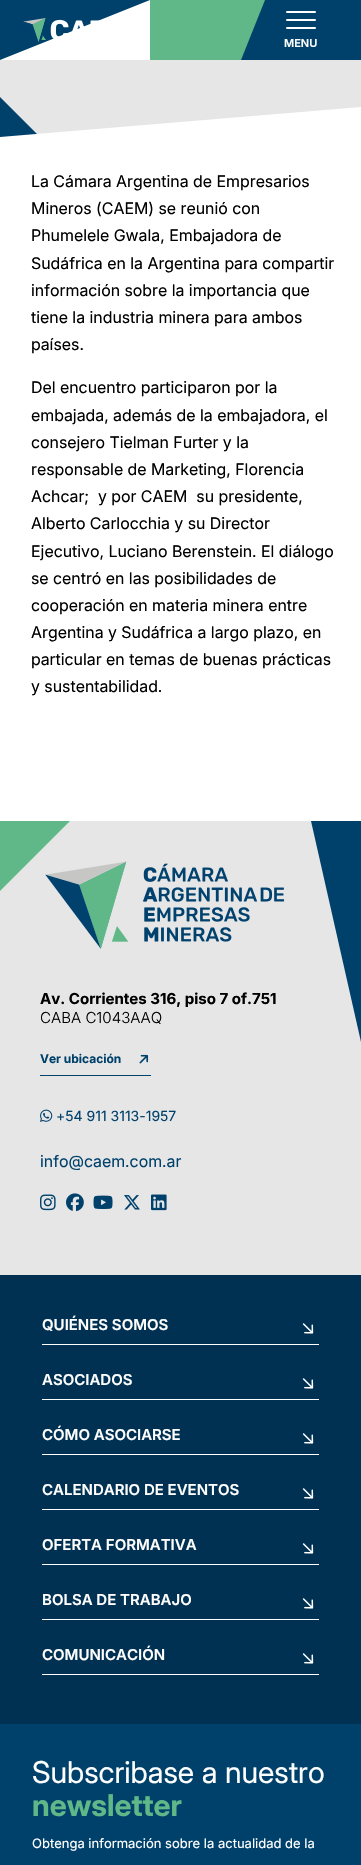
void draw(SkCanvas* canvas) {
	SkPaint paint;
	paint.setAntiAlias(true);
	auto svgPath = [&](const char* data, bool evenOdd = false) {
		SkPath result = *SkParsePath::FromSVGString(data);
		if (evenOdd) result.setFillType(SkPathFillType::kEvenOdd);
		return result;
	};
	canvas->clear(0xffffffff);
	paint.setColor(0xff60b888);
	canvas->drawRect(SkRect::MakeXYWH(150, 0, 115, 60), paint);
	paint.setColor(0xff00416b);
	canvas->drawPath(svgPath("M0 30V0H150L0 60Z"), paint);
	canvas->drawImageRect(SkImages::DeferredFromEncodedData(SkData::MakeFromFileName("img1.png")), SkRect::MakeXYWH(23, 18, 77, 24), SkSamplingOptions());
	canvas->drawPath(svgPath("M265 0H361V60H241Z"), paint);
	paint.setColor(0xffffffff);
	canvas->drawRoundRect(SkRect::MakeXYWH(286, 19, 30, 2), 1, 1, paint);
	canvas->drawRoundRect(SkRect::MakeXYWH(286, 11, 30, 2), 1, 1, paint);
	canvas->drawRoundRect(SkRect::MakeXYWH(286, 27, 30, 2), 1, 1, paint);
	SkFont f1(fontMgr->matchFamilyStyle("Inter", SkFontStyle(600, SkFontStyle::kNormal_Width, SkFontStyle::kUpright_Slant)), 11);
	f1.setSubpixel(true);
	canvas->drawString("MENU", 284, 47, f1, paint);
	paint.setColor(0xffe6e6e6);
	canvas->drawRect(SkRect::MakeXYWH(0, 60, 361, 74), paint);
	paint.setColor(0xff00416b);
	canvas->drawPath(svgPath("M40 137L0 97V137Z", true), paint);
	paint.setColor(0xffffffff);
	canvas->drawPath(svgPath("M361 137V107L0 137Z", true), paint);
	SkFont f2(fontMgr->matchFamilyStyle("Inter", SkFontStyle::Normal()), 16);
	f2.setSubpixel(true);
	paint.setColor(0xff000000);
	canvas->drawString("La Cámara Argentina de Empresarios", 31, 187, f2, paint);
	canvas->drawString("Mineros (CAEM) se reunió con", 31, 214, f2, paint);
	canvas->drawString("Phumelele Gwala, Embajadora de", 31, 241, f2, paint);
	canvas->drawString("Sudáfrica en la Argentina para compartir", 31, 269, f2, paint);
	canvas->drawString("información sobre la importancia que", 31, 296, f2, paint);
	canvas->drawString("tiene la industria minera para ambos", 31, 323, f2, paint);
	canvas->drawString("países.", 31, 350, f2, paint);
	canvas->drawString("Del encuentro participaron por la", 31, 393, f2, paint);
	canvas->drawString("embajada, además de la embajadora, el", 31, 421, f2, paint);
	canvas->drawString("consejero Tielman Furter y la", 31, 448, f2, paint);
	canvas->drawString("responsable de Marketing, Florencia", 31, 475, f2, paint);
	canvas->drawString("Achcar;  y por CAEM  su presidente,", 31, 502, f2, paint);
	canvas->drawString("Alberto Carlocchia y su Director", 31, 529, f2, paint);
	canvas->drawString("Ejecutivo, Luciano Berenstein. El diálogo", 31, 557, f2, paint);
	canvas->drawString("se centró en las posibilidades de", 31, 584, f2, paint);
	canvas->drawString("cooperación en materia minera entre", 31, 611, f2, paint);
	canvas->drawString("Argentina y Sudáfrica a largo plazo, en", 31, 638, f2, paint);
	canvas->drawString("particular en temas de buenas prácticas", 31, 665, f2, paint);
	canvas->drawString("y sustentabilidad.", 31, 692, f2, paint);
	paint.setColor(0xffe6e6e6);
	canvas->drawRect(SkRect::MakeXYWH(0, 821, 361, 454), paint);
	canvas->drawImageRect(SkImages::DeferredFromEncodedData(SkData::MakeFromFileName("img2.png")), SkRect::MakeXYWH(45, 861, 240, 88), SkSamplingOptions());
	paint.setColor(0xff60b888);
	canvas->drawPath(svgPath("M0 821V891L70 821Z", true), paint);
	paint.setColor(0xff00416b);
	canvas->drawPath(svgPath("M361 821H311L361 1042Z", true), paint);
	SkFont f3(fontMgr->matchFamilyStyle("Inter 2", SkFontStyle::Bold()), 15.1);
	f3.setSubpixel(true);
	paint.setColor(0xff000000);
	canvas->drawString("Av. Corrientes 316, piso 7 of.751", 40, 1004, f3, paint);
	SkFont f4(fontMgr->matchFamilyStyle("Inter", SkFontStyle(300, SkFontStyle::kNormal_Width, SkFontStyle::kUpright_Slant)), 15.1);
	f4.setSubpixel(true);
	canvas->drawString("CABA C1043AAQ", 40, 1023, f4, paint);
	paint.setColor(0xff00416b);
	canvas->drawRect(SkRect::MakeXYWH(40, 1075, 111, 1), paint);
	SkFont f5(fontMgr->matchFamilyStyle("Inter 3", SkFontStyle::Bold()), 12);
	f5.setSubpixel(true);
	canvas->drawString("Ver ubicación", 40, 1063, f5, paint);
	canvas->drawImageRect(SkImages::DeferredFromEncodedData(SkData::MakeFromFileName("img3.png")), SkRect::MakeXYWH(139, 1054, 10, 10), SkSamplingOptions());
	canvas->drawImageRect(SkImages::DeferredFromEncodedData(SkData::MakeFromFileName("img4.png")), SkRect::MakeXYWH(40, 1109, 13, 13), SkSamplingOptions());
	SkFont f6(fontMgr->matchFamilyStyle("Inter 3", SkFontStyle::Normal()), 14);
	f6.setSubpixel(true);
	canvas->drawString("+54 911 3113-1957", 56, 1121, f6, paint);
	canvas->drawString("info@caem.com.ar", 40, 1167, f2, paint);
	canvas->drawImageRect(SkImages::DeferredFromEncodedData(SkData::MakeFromFileName("img5.png")), SkRect::MakeXYWH(40, 1194, 16, 17), SkSamplingOptions());
	canvas->drawImageRect(SkImages::DeferredFromEncodedData(SkData::MakeFromFileName("img6.png")), SkRect::MakeXYWH(66, 1193, 18, 19), SkSamplingOptions());
	canvas->drawImageRect(SkImages::DeferredFromEncodedData(SkData::MakeFromFileName("img7.png")), SkRect::MakeXYWH(93, 1195, 20, 14), SkSamplingOptions());
	canvas->drawImageRect(SkImages::DeferredFromEncodedData(SkData::MakeFromFileName("img8.png")), SkRect::MakeXYWH(124, 1195, 16, 15), SkSamplingOptions());
	canvas->drawImageRect(SkImages::DeferredFromEncodedData(SkData::MakeFromFileName("img9.png")), SkRect::MakeXYWH(151, 1194, 16, 17), SkSamplingOptions());
	paint.setColor(0xff003152);
	canvas->drawRect(SkRect::MakeXYWH(0, 1275, 361, 449), paint);
	paint.setColor(0xffffffff);
	canvas->drawRect(SkRect::MakeXYWH(42, 1344, 277, 1), paint);
	SkFont f7(fontMgr->matchFamilyStyle("Inter", SkFontStyle(600, SkFontStyle::kNormal_Width, SkFontStyle::kUpright_Slant)), 15);
	f7.setSubpixel(true);
	canvas->drawString("QUIÉNES SOMOS", 42, 1330, f7, paint);
	canvas->drawImageRect(SkImages::DeferredFromEncodedData(SkData::MakeFromFileName("img10.png")), SkRect::MakeXYWH(302, 1323, 12, 11), SkSamplingOptions());
	canvas->drawRect(SkRect::MakeXYWH(42, 1399, 277, 1), paint);
	canvas->drawString("ASOCIADOS", 42, 1385, f7, paint);
	canvas->drawImageRect(SkImages::DeferredFromEncodedData(SkData::MakeFromFileName("img10.png")), SkRect::MakeXYWH(302, 1378, 12, 11), SkSamplingOptions());
	canvas->drawRect(SkRect::MakeXYWH(42, 1454, 277, 1), paint);
	canvas->drawString("CÓMO ASOCIARSE", 42, 1440, f7, paint);
	canvas->drawImageRect(SkImages::DeferredFromEncodedData(SkData::MakeFromFileName("img10.png")), SkRect::MakeXYWH(302, 1433, 12, 11), SkSamplingOptions());
	canvas->drawRect(SkRect::MakeXYWH(42, 1509, 277, 1), paint);
	canvas->drawString("CALENDARIO DE EVENTOS", 42, 1495, f7, paint);
	canvas->drawImageRect(SkImages::DeferredFromEncodedData(SkData::MakeFromFileName("img10.png")), SkRect::MakeXYWH(302, 1488, 12, 11), SkSamplingOptions());
	canvas->drawRect(SkRect::MakeXYWH(42, 1564, 277, 1), paint);
	canvas->drawString("OFERTA FORMATIVA", 42, 1550, f7, paint);
	canvas->drawImageRect(SkImages::DeferredFromEncodedData(SkData::MakeFromFileName("img10.png")), SkRect::MakeXYWH(302, 1543, 12, 11), SkSamplingOptions());
	canvas->drawRect(SkRect::MakeXYWH(42, 1619, 277, 1), paint);
	canvas->drawString("BOLSA DE TRABAJO", 42, 1605, f7, paint);
	canvas->drawImageRect(SkImages::DeferredFromEncodedData(SkData::MakeFromFileName("img10.png")), SkRect::MakeXYWH(302, 1598, 12, 11), SkSamplingOptions());
	canvas->drawRect(SkRect::MakeXYWH(42, 1674, 277, 1), paint);
	canvas->drawString("COMUNICACIÓN", 42, 1660, f7, paint);
	canvas->drawImageRect(SkImages::DeferredFromEncodedData(SkData::MakeFromFileName("img10.png")), SkRect::MakeXYWH(302, 1653, 12, 11), SkSamplingOptions());
	paint.setColor(0xff00416b);
	canvas->drawRect(SkRect::MakeXYWH(0, 1724, 361, 141), paint);
	SkFont f8(fontMgr->matchFamilyStyle("Inter 2", SkFontStyle::Normal()), 30);
	f8.setSubpixel(true);
	paint.setColor(0xffffffff);
	canvas->drawString("Subscribase a nuestro", 32, 1783, f8, paint);
	SkFont f9(fontMgr->matchFamilyStyle("Inter", SkFontStyle::Bold()), 30);
	f9.setSubpixel(true);
	paint.setColor(0xff60b888);
	canvas->drawString("newsletter", 32, 1816, f9, paint);
	SkFont f10(fontMgr->matchFamilyStyle("Inter 3", SkFontStyle::Normal()), 13);
	f10.setSubpixel(true);
	paint.setColor(0xffffffff);
	canvas->drawString("Obtenga información sobre la actualidad de la", 32, 1848, f10, paint);
}
